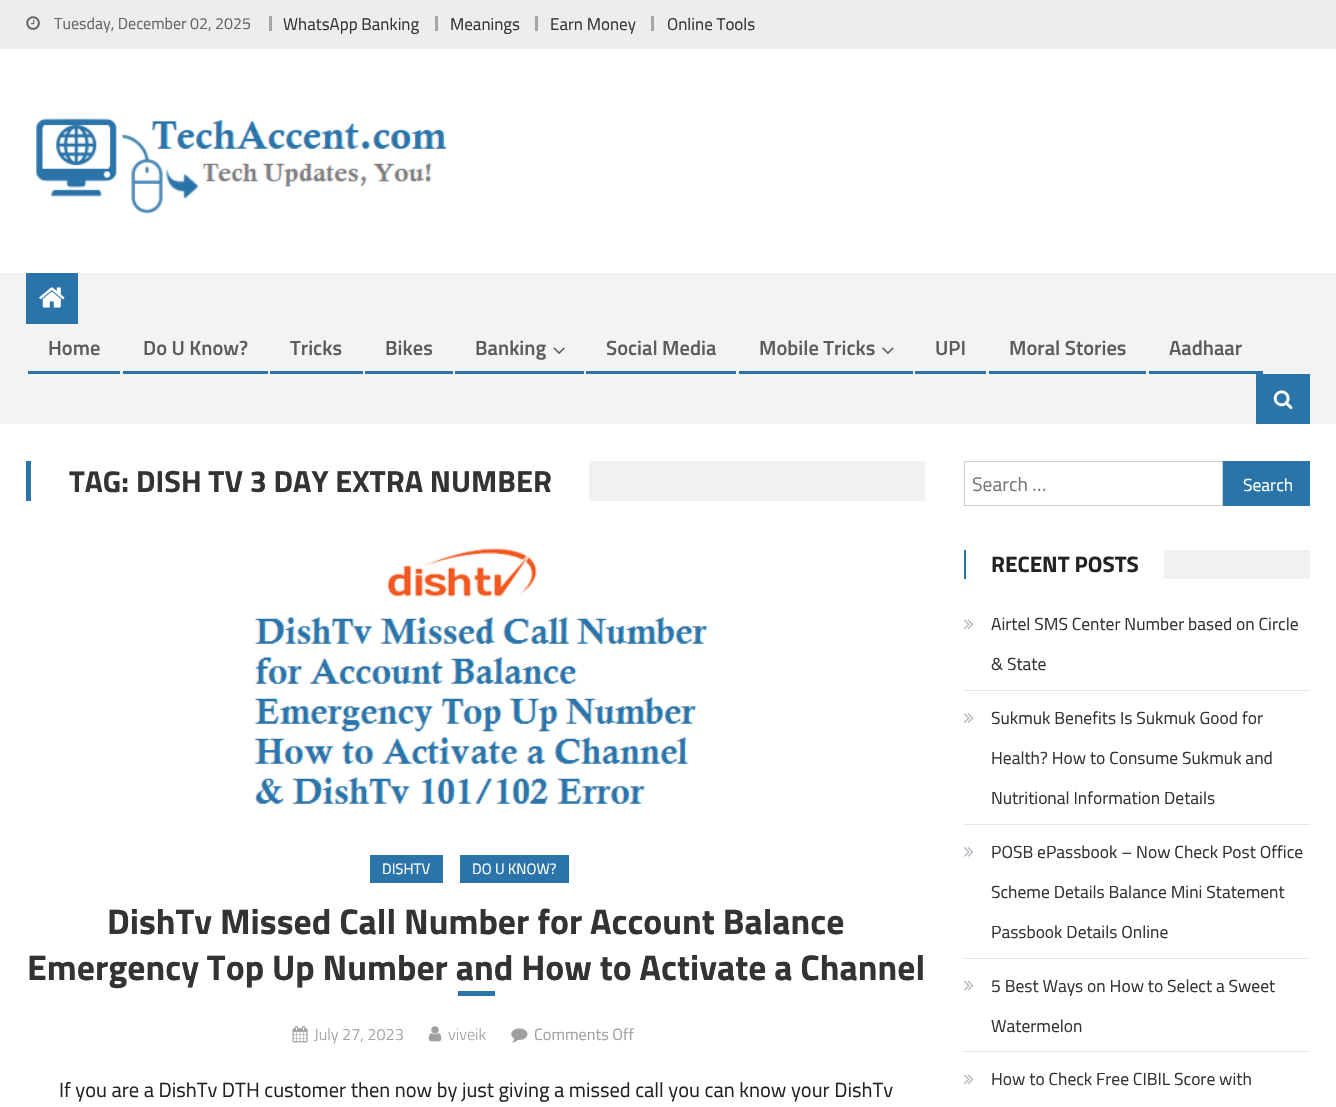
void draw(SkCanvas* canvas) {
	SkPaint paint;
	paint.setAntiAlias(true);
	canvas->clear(0xffffffff);
	paint.setColor(0xffededed);
	canvas->drawRect(SkRect::MakeXYWH(0, 0, 1336, 49), paint);
	canvas->drawImageRect(SkImages::DeferredFromEncodedData(SkData::MakeFromFileName("img1.png")), SkRect::MakeXYWH(26, 16, 14, 14), SkSamplingOptions());
	SkFont f1(fontMgr->matchFamilyStyle("Titillium Web", SkFontStyle::Normal()), 16);
	f1.setSubpixel(true);
	paint.setColor(0xff666363);
	canvas->drawString("Tuesday, December 02, 2025", 54, 29, f1, paint);
	paint.setColor(0xffa6a6a6);
	canvas->drawRect(SkRect::MakeXYWH(269, 16, 3, 15), paint);
	SkFont f2(fontMgr->matchFamilyStyle("Titillium Web", SkFontStyle::Normal()), 17);
	f2.setSubpixel(true);
	paint.setColor(0xff333333);
	canvas->drawString("WhatsApp Banking", 283, 30, f2, paint);
	paint.setColor(0xffa6a6a6);
	canvas->drawRect(SkRect::MakeXYWH(435, 16, 3, 15), paint);
	paint.setColor(0xff333333);
	canvas->drawString("Meanings", 450, 30, f2, paint);
	paint.setColor(0xffa6a6a6);
	canvas->drawRect(SkRect::MakeXYWH(535, 16, 3, 15), paint);
	paint.setColor(0xff333333);
	canvas->drawString("Earn Money", 550, 30, f2, paint);
	paint.setColor(0xffa6a6a6);
	canvas->drawRect(SkRect::MakeXYWH(651, 16, 3, 15), paint);
	paint.setColor(0xff333333);
	canvas->drawString("Online Tools", 667, 30, f2, paint);
	canvas->drawImageRect(SkImages::DeferredFromEncodedData(SkData::MakeFromFileName("img2.png")), SkRect::MakeXYWH(36, 118, 411, 96), SkSamplingOptions());
	paint.setColor(0xfff3f3f3);
	canvas->drawRect(SkRect::MakeXYWH(0, 273, 1336, 151), paint);
	paint.setColor(0xff2b74a9);
	canvas->drawRect(SkRect::MakeXYWH(26, 273, 52, 51), paint);
	canvas->drawImageRect(SkImages::DeferredFromEncodedData(SkData::MakeFromFileName("img3.png")), SkRect::MakeXYWH(39, 287, 26, 21), SkSamplingOptions());
	canvas->drawRect(SkRect::MakeXYWH(28, 371, 92, 3), paint);
	SkFont f3(fontMgr->matchFamilyStyle("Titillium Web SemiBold", SkFontStyle(600, SkFontStyle::kNormal_Width, SkFontStyle::kUpright_Slant)), 20.5);
	f3.setSubpixel(true);
	paint.setColor(0xff5d5c5c);
	canvas->drawString("Home", 48, 355, f3, paint);
	paint.setColor(0xff2b74a9);
	canvas->drawRect(SkRect::MakeXYWH(123, 371, 145, 3), paint);
	paint.setColor(0xff5d5c5c);
	canvas->drawString("Do U Know?", 143, 355, f3, paint);
	paint.setColor(0xff2b74a9);
	canvas->drawRect(SkRect::MakeXYWH(270, 371, 93, 3), paint);
	paint.setColor(0xff5d5c5c);
	canvas->drawString("Tricks", 290, 355, f3, paint);
	paint.setColor(0xff2b74a9);
	canvas->drawRect(SkRect::MakeXYWH(365, 371, 88, 3), paint);
	paint.setColor(0xff5d5c5c);
	canvas->drawString("Bikes", 385, 355, f3, paint);
	paint.setColor(0xff2b74a9);
	canvas->drawRect(SkRect::MakeXYWH(455, 371, 129, 3), paint);
	paint.setColor(0xff5d5c5c);
	canvas->drawString("Banking", 475, 355, f3, paint);
	canvas->drawImageRect(SkImages::DeferredFromEncodedData(SkData::MakeFromFileName("img4.png")), SkRect::MakeXYWH(553, 347, 12, 7), SkSamplingOptions());
	paint.setColor(0xff2b74a9);
	canvas->drawRect(SkRect::MakeXYWH(586, 371, 150, 3), paint);
	paint.setColor(0xff5d5c5c);
	canvas->drawString("Social Media", 606, 355, f3, paint);
	paint.setColor(0xff2b74a9);
	canvas->drawRect(SkRect::MakeXYWH(739, 371, 174, 3), paint);
	paint.setColor(0xff5d5c5c);
	canvas->drawString("Mobile Tricks", 759, 355, f3, paint);
	canvas->drawImageRect(SkImages::DeferredFromEncodedData(SkData::MakeFromFileName("img5.png")), SkRect::MakeXYWH(882, 347, 12, 7), SkSamplingOptions());
	paint.setColor(0xff2b74a9);
	canvas->drawRect(SkRect::MakeXYWH(915, 371, 71, 3), paint);
	paint.setColor(0xff5d5c5c);
	canvas->drawString("UPI", 935, 355, f3, paint);
	paint.setColor(0xff2b74a9);
	canvas->drawRect(SkRect::MakeXYWH(989, 371, 157, 3), paint);
	paint.setColor(0xff5d5c5c);
	canvas->drawString("Moral Stories", 1009, 355, f3, paint);
	paint.setColor(0xff2b74a9);
	canvas->drawRect(SkRect::MakeXYWH(1149, 371, 114, 3), paint);
	paint.setColor(0xff5d5c5c);
	canvas->drawString("Aadhaar", 1169, 355, f3, paint);
	paint.setColor(0xff2b74a9);
	canvas->drawRect(SkRect::MakeXYWH(1256, 374, 54, 50), paint);
	canvas->drawImageRect(SkImages::DeferredFromEncodedData(SkData::MakeFromFileName("img6.png")), SkRect::MakeXYWH(1273, 390, 20, 20), SkSamplingOptions());
	paint.setColor(0xfff1f1f1);
	canvas->drawRect(SkRect::MakeXYWH(589, 461, 336, 40), paint);
	paint.setColor(0xff2b74a9);
	canvas->drawRect(SkRect::MakeXYWH(26, 461, 5, 40), paint);
	SkFont f4(fontMgr->matchFamilyStyle("Titillium Web", SkFontStyle::Bold()), 30);
	f4.setSubpixel(true);
	paint.setColor(0xff333333);
	canvas->drawString("TAG:", 69, 492, f4, paint);
	SkFont f5(fontMgr->matchFamilyStyle("Titillium Web", SkFontStyle::Bold()), 30.6);
	f5.setSubpixel(true);
	canvas->drawString("DISH TV 3 DAY EXTRA NUMBER", 136, 492, f5, paint);
	canvas->drawImageRect(SkImages::DeferredFromEncodedData(SkData::MakeFromFileName("img7.png")), SkRect::MakeXYWH(254, 548, 454, 256), SkSamplingOptions());
	paint.setColor(0xff2b74a9);
	canvas->drawRect(SkRect::MakeXYWH(370, 855, 73, 28), paint);
	SkFont f6(fontMgr->matchFamilyStyle("Titillium Web", SkFontStyle::Normal()), 15);
	f6.setSubpixel(true);
	paint.setColor(0xffffffff);
	canvas->drawString("DISHTV", 382, 874, f6, paint);
	paint.setColor(0xff2b74a9);
	canvas->drawRect(SkRect::MakeXYWH(460, 855, 109, 28), paint);
	paint.setColor(0xffffffff);
	canvas->drawString("DO U KNOW?", 472, 874, f6, paint);
	SkFont f7(fontMgr->matchFamilyStyle("Titillium Web", SkFontStyle::Bold()), 35.7);
	f7.setSubpixel(true);
	paint.setColor(0xff333333);
	canvas->drawString("DishTv Missed Call Number for Account Balance", 107, 934, f7, paint);
	canvas->drawString("Emergency Top Up Number and How to Activate a Channel", 27, 980, f7, paint);
	paint.setColor(0xff2b74a9);
	canvas->drawRect(SkRect::MakeXYWH(458, 991, 37, 5), paint);
	canvas->drawImageRect(SkImages::DeferredFromEncodedData(SkData::MakeFromFileName("img8.png")), SkRect::MakeXYWH(292, 1026, 16, 17), SkSamplingOptions());
	SkFont f8(fontMgr->matchFamilyStyle("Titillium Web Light", SkFontStyle(300, SkFontStyle::kNormal_Width, SkFontStyle::kUpright_Slant)), 16.25);
	f8.setSubpixel(true);
	paint.setColor(0xff9f9f9f);
	canvas->drawString("July 27, 2023", 314, 1040, f8, paint);
	canvas->drawImageRect(SkImages::DeferredFromEncodedData(SkData::MakeFromFileName("img9.png")), SkRect::MakeXYWH(428, 1026, 14, 16), SkSamplingOptions());
	canvas->drawString("viveik", 448, 1040, f8, paint);
	canvas->drawImageRect(SkImages::DeferredFromEncodedData(SkData::MakeFromFileName("img10.png")), SkRect::MakeXYWH(511, 1028, 17, 15), SkSamplingOptions());
	SkFont f9(fontMgr->matchFamilyStyle("Titillium Web", SkFontStyle::Normal()), 16.25);
	f9.setSubpixel(true);
	canvas->drawString("Comments Off", 534, 1040, f9, paint);
	SkFont f10(fontMgr->matchFamilyStyle("Titillium Web", SkFontStyle::Normal()), 20.5);
	f10.setSubpixel(true);
	paint.setColor(0xff222222);
	canvas->drawString("If you are a DishTv DTH customer then now by just giving a missed call you can know your DishTv", 59, 1097, f10, paint);
	paint.setStroke(true);
	paint.setStrokeWidth(1);
	paint.setColor(0xffcccccc);
	canvas->drawRect(SkRect::MakeXYWH(964.5, 461.5, 258, 44), paint);
	SkFont f11(fontMgr->matchFamilyStyle("Titillium Web", SkFontStyle::Normal()), 19.5);
	f11.setSubpixel(true);
	paint.setStroke(false);
	paint.setColor(0xff757575);
	canvas->drawString("Search …", 972, 491, f11, paint);
	paint.setColor(0xff2b74a9);
	canvas->drawRect(SkRect::MakeXYWH(1223, 461, 87, 45), paint);
	SkFont f12(fontMgr->matchFamilyStyle("Titillium Web", SkFontStyle::Normal()), 17.5);
	f12.setSubpixel(true);
	paint.setColor(0xffffffff);
	canvas->drawString("Search", 1243, 491, f12, paint);
	paint.setColor(0xfff1f1f1);
	canvas->drawRect(SkRect::MakeXYWH(1164, 550, 146, 29), paint);
	paint.setColor(0xff2b74a9);
	canvas->drawRect(SkRect::MakeXYWH(964, 550, 2, 29), paint);
	SkFont f13(fontMgr->matchFamilyStyle("Titillium Web", SkFontStyle::Bold()), 22.5);
	f13.setSubpixel(true);
	paint.setColor(0xff222222);
	canvas->drawString("RECENT POSTS", 991, 572, f13, paint);
	paint.setColor(0xffe6e6e6);
	canvas->drawRect(SkRect::MakeXYWH(964, 690, 346, 1), paint);
	canvas->drawImageRect(SkImages::DeferredFromEncodedData(SkData::MakeFromFileName("img11.png")), SkRect::MakeXYWH(964, 619, 10, 11), SkSamplingOptions());
	paint.setColor(0xff333333);
	canvas->drawString("Airtel SMS Center Number based on Circle", 991, 630, f12, paint);
	canvas->drawString("& State", 991, 670, f12, paint);
	paint.setColor(0xffe6e6e6);
	canvas->drawRect(SkRect::MakeXYWH(964, 824, 346, 1), paint);
	canvas->drawImageRect(SkImages::DeferredFromEncodedData(SkData::MakeFromFileName("img12.png")), SkRect::MakeXYWH(964, 713, 10, 10), SkSamplingOptions());
	paint.setColor(0xff333333);
	canvas->drawString("Sukmuk Benefits Is Sukmuk Good for", 991, 724, f12, paint);
	canvas->drawString("Health? How to Consume Sukmuk and", 991, 764, f12, paint);
	canvas->drawString("Nutritional Information Details", 991, 804, f12, paint);
	paint.setColor(0xffe6e6e6);
	canvas->drawRect(SkRect::MakeXYWH(964, 958, 346, 1), paint);
	canvas->drawImageRect(SkImages::DeferredFromEncodedData(SkData::MakeFromFileName("img13.png")), SkRect::MakeXYWH(964, 847, 10, 10), SkSamplingOptions());
	paint.setColor(0xff333333);
	canvas->drawString("POSB ePassbook – Now Check Post Office", 991, 858, f12, paint);
	canvas->drawString("Scheme Details Balance Mini Statement", 991, 898, f12, paint);
	canvas->drawString("Passbook Details Online", 991, 938, f12, paint);
	paint.setColor(0xffe6e6e6);
	canvas->drawRect(SkRect::MakeXYWH(964, 1051, 346, 1), paint);
	canvas->drawImageRect(SkImages::DeferredFromEncodedData(SkData::MakeFromFileName("img14.png")), SkRect::MakeXYWH(964, 980, 10, 11), SkSamplingOptions());
	paint.setColor(0xff333333);
	canvas->drawString("5 Best Ways on How to Select a Sweet", 991, 992, f12, paint);
	canvas->drawString("Watermelon", 991, 1032, f12, paint);
	canvas->drawImageRect(SkImages::DeferredFromEncodedData(SkData::MakeFromFileName("img11.png")), SkRect::MakeXYWH(964, 1074, 10, 11), SkSamplingOptions());
	canvas->drawString("How to Check Free CIBIL Score with", 991, 1085, f12, paint);
}
